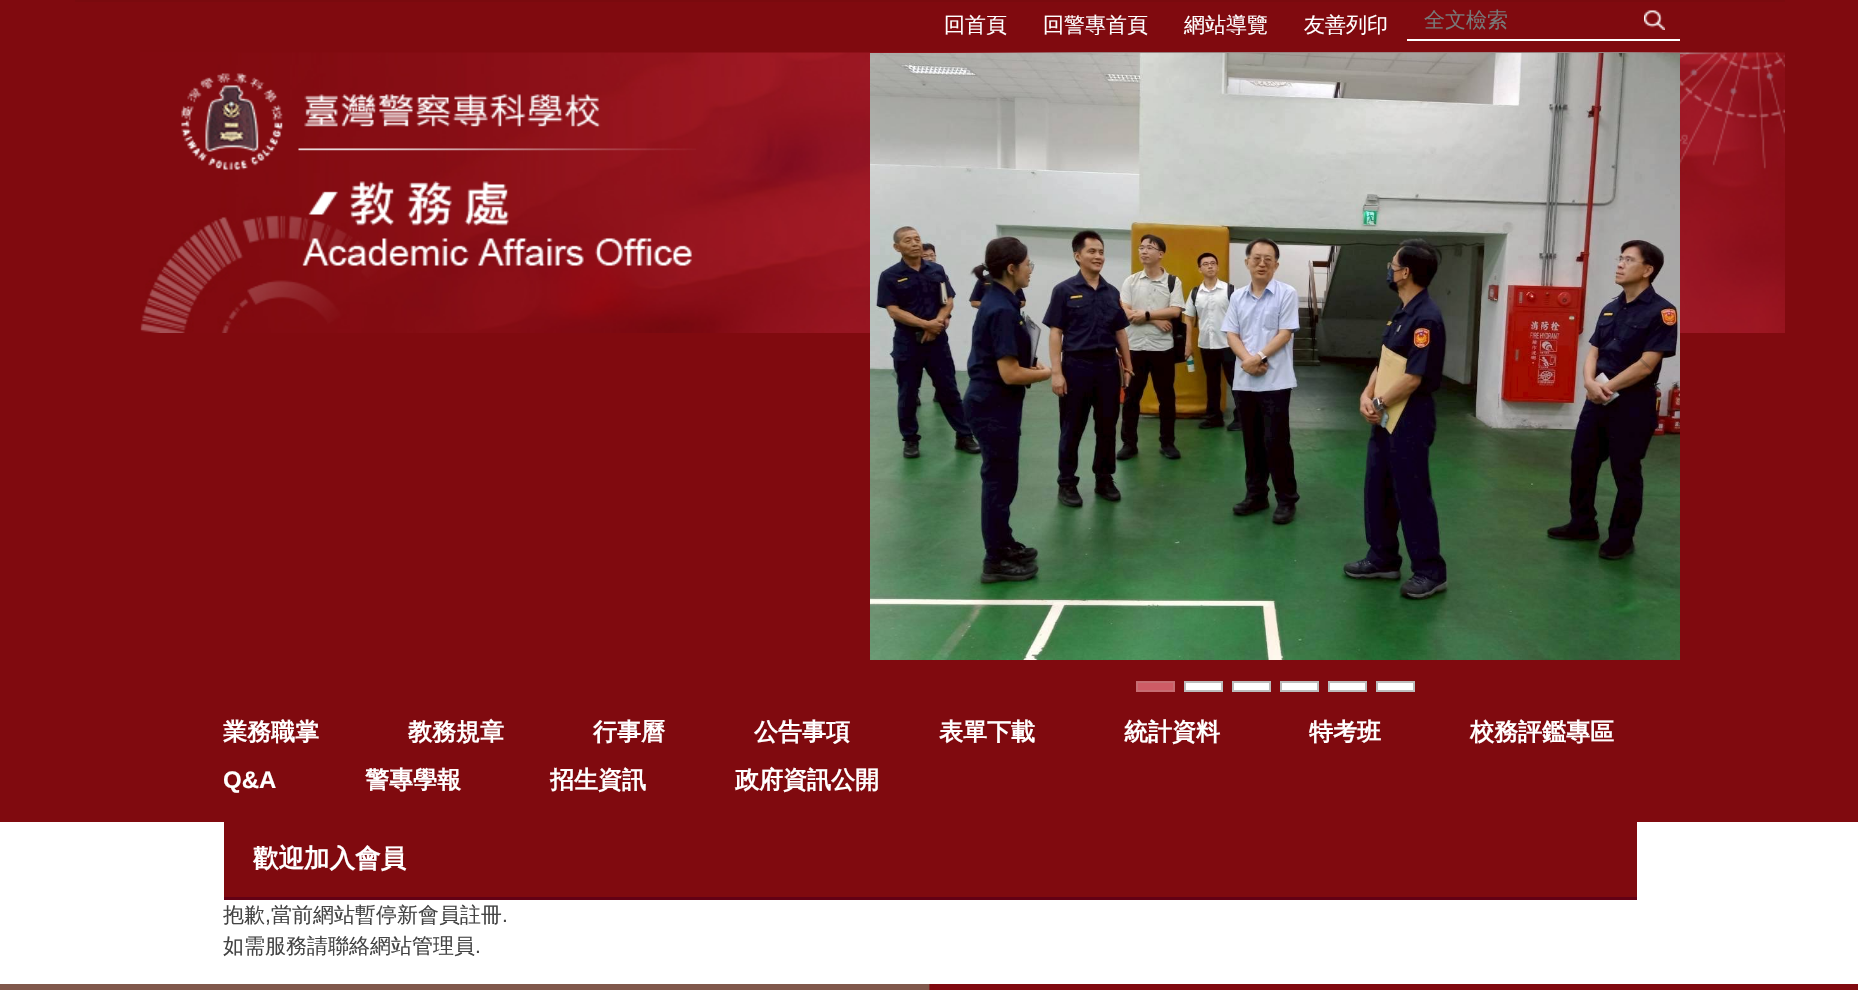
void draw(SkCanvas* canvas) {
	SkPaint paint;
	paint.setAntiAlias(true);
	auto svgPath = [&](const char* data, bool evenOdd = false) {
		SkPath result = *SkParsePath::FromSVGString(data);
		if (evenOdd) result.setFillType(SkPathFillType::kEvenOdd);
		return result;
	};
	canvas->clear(0xffffffff);
	paint.setColor(0xff800a0f);
	canvas->drawRect(SkRect::MakeXYWH(0, 0, 1858, 822), paint);
	paint.setColor(0xff7a0a0e);
	canvas->drawRect(SkRect::MakeXYWH(75, 0, 1710, 2), paint);
	SkFont f1(fontMgr->matchFamilyStyle("WenQuanYi Zen Hei", SkFontStyle(500, SkFontStyle::kNormal_Width, SkFontStyle::kUpright_Slant)), 21);
	f1.setSubpixel(true);
	paint.setColor(0xffffffff);
	canvas->drawString("回首頁", 944, 32, f1, paint);
	canvas->drawString("回警專首頁", 1043, 32, f1, paint);
	canvas->drawString("網站導覽", 1184, 32, f1, paint);
	canvas->drawString("友善列印", 1304, 32, f1, paint);
	canvas->drawRect(SkRect::MakeXYWH(1407, 39, 273, 2), paint);
	paint.setColor(0xff777777);
	canvas->drawString("全文檢索", 1424, 27, f1, paint);
	canvas->drawImageRect(SkImages::DeferredFromEncodedData(SkData::MakeFromFileName("img1.png")), SkRect::MakeXYWH(1644, 10, 21, 20), SkSamplingOptions());
	canvas->drawImageRect(SkImages::DeferredFromEncodedData(SkData::MakeFromFileName("img2.png")), SkRect::MakeXYWH(140, 52, 1645, 281), SkSamplingOptions());
	canvas->drawImageRect(SkImages::DeferredFromEncodedData(SkData::MakeFromFileName("img3.png")), SkRect::MakeXYWH(181, 73, 515, 193), SkSamplingOptions());
	canvas->drawImageRect(SkImages::DeferredFromEncodedData(SkData::MakeFromFileName("img4.png")), SkRect::MakeXYWH(870, 53, 810, 607), SkSamplingOptions());
	paint.setColor(0x30000000);
	canvas->drawPath(svgPath("M907 390L891 374H895L909 388ZM891 374L907 358.5L909 360.5L895 374Z"), paint);
	canvas->drawPath(svgPath("M1642 358.5L1657.5 374H1653.5L1639.5 360.5ZM1657.5 374L1642 390L1639.5 388L1653.5 374Z"), paint);
	paint.setColor(0xffce5b65);
	canvas->drawRect(SkRect::MakeXYWH(1137, 682, 37, 9), paint);
	paint.setStroke(true);
	paint.setStrokeWidth(2);
	paint.setColor(0xffc66d72);
	canvas->drawRect(SkRect::MakeXYWH(1137, 682, 37, 9), paint);
	paint.setStroke(false);
	paint.setColor(0xffffffff);
	canvas->drawRect(SkRect::MakeXYWH(1185, 682, 37, 9), paint);
	paint.setStroke(true);
	paint.setColor(0xffbcbcbc);
	canvas->drawRect(SkRect::MakeXYWH(1185, 682, 37, 9), paint);
	paint.setStroke(false);
	paint.setColor(0xffffffff);
	canvas->drawRect(SkRect::MakeXYWH(1233, 682, 37, 9), paint);
	paint.setStroke(true);
	paint.setColor(0xffbcbcbc);
	canvas->drawRect(SkRect::MakeXYWH(1233, 682, 37, 9), paint);
	paint.setStroke(false);
	paint.setColor(0xffffffff);
	canvas->drawRect(SkRect::MakeXYWH(1281, 682, 37, 9), paint);
	paint.setStroke(true);
	paint.setColor(0xffbcbcbc);
	canvas->drawRect(SkRect::MakeXYWH(1281, 682, 37, 9), paint);
	paint.setStroke(false);
	paint.setColor(0xffffffff);
	canvas->drawRect(SkRect::MakeXYWH(1329, 682, 37, 9), paint);
	paint.setStroke(true);
	paint.setColor(0xffbcbcbc);
	canvas->drawRect(SkRect::MakeXYWH(1329, 682, 37, 9), paint);
	paint.setStroke(false);
	paint.setColor(0xffffffff);
	canvas->drawRect(SkRect::MakeXYWH(1377, 682, 37, 9), paint);
	paint.setStroke(true);
	paint.setColor(0xffbcbcbc);
	canvas->drawRect(SkRect::MakeXYWH(1377, 682, 37, 9), paint);
	SkFont f2(fontMgr->matchFamilyStyle("WenQuanYi Zen Hei", SkFontStyle::Bold()), 24);
	f2.setSubpixel(true);
	paint.setStroke(false);
	paint.setColor(0xffffffff);
	canvas->drawString("業務職掌", 223, 740, f2, paint);
	canvas->drawString("教務規章", 408, 740, f2, paint);
	canvas->drawString("行事曆", 593, 740, f2, paint);
	canvas->drawString("公告事項", 754, 740, f2, paint);
	canvas->drawString("表單下載", 939, 740, f2, paint);
	canvas->drawString("統計資料", 1124, 740, f2, paint);
	canvas->drawString("特考班", 1309, 740, f2, paint);
	canvas->drawString("校務評鑑專區", 1470, 740, f2, paint);
	SkFont f3(fontMgr->matchFamilyStyle("Liberation Sans", SkFontStyle::Bold()), 24);
	f3.setSubpixel(true);
	canvas->drawString("Q&A", 223, 788, f3, paint);
	canvas->drawString("警專學報", 365, 788, f2, paint);
	canvas->drawString("招生資訊", 550, 788, f2, paint);
	canvas->drawString("政府資訊公開", 735, 788, f2, paint);
	paint.setColor(0xff800a0f);
	canvas->drawRect(SkRect::MakeXYWH(224, 822, 1413, 75), paint);
	paint.setColor(0xff630115);
	canvas->drawRect(SkRect::MakeXYWH(224, 897, 1413, 3), paint);
	SkFont f4(fontMgr->matchFamilyStyle("WenQuanYi Zen Hei", SkFontStyle::Bold()), 25.5);
	f4.setSubpixel(true);
	paint.setColor(0xffffffff);
	canvas->drawString("歡迎加入會員", 253, 867, f4, paint);
	paint.setColor(0xff444444);
	canvas->drawString("抱歉", 223, 922, f1, paint);
	SkFont f5(fontMgr->matchFamilyStyle("Liberation Sans", SkFontStyle::Normal()), 21);
	f5.setSubpixel(true);
	canvas->drawString(",", 265, 922, f5, paint);
	canvas->drawString("當前網站暫停新會員註冊", 271, 922, f1, paint);
	canvas->drawString(".", 502, 922, f5, paint);
	canvas->drawString("如需服務請聯絡網站管理員", 223, 953, f1, paint);
	canvas->drawString(".", 475, 953, f5, paint);
	canvas->drawImageRect(SkImages::DeferredFromEncodedData(SkData::MakeFromFileName("img5.png")), SkRect::MakeXYWH(0, 984, 1858, 6), SkSamplingOptions());
}
